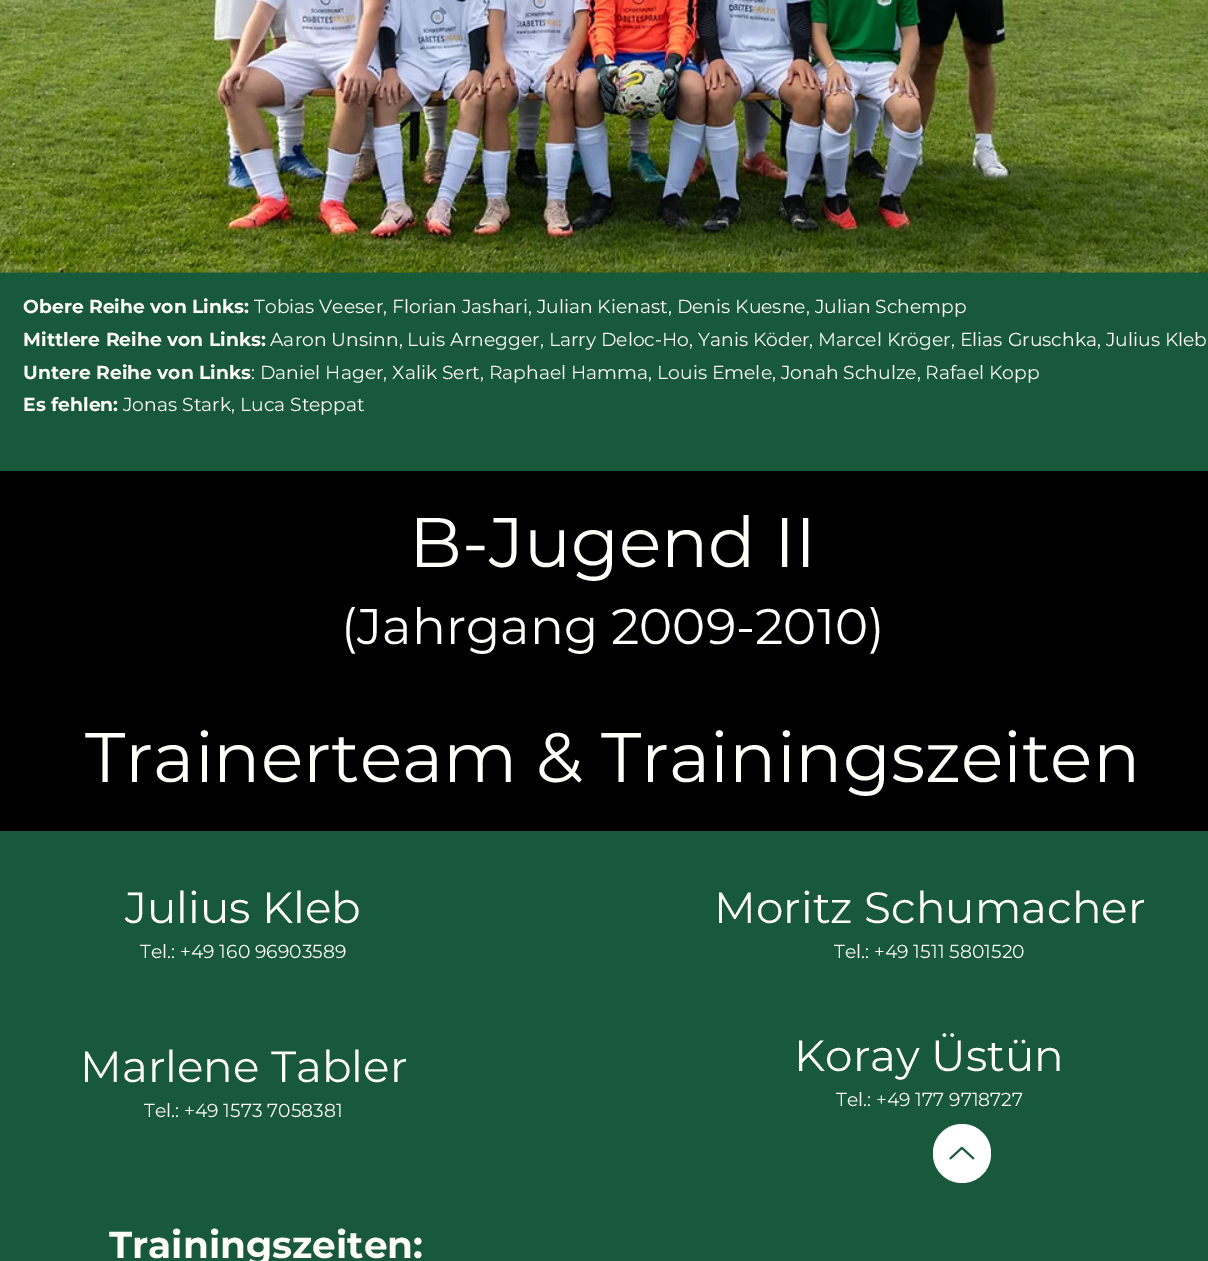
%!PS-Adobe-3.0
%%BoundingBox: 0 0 1208 1261
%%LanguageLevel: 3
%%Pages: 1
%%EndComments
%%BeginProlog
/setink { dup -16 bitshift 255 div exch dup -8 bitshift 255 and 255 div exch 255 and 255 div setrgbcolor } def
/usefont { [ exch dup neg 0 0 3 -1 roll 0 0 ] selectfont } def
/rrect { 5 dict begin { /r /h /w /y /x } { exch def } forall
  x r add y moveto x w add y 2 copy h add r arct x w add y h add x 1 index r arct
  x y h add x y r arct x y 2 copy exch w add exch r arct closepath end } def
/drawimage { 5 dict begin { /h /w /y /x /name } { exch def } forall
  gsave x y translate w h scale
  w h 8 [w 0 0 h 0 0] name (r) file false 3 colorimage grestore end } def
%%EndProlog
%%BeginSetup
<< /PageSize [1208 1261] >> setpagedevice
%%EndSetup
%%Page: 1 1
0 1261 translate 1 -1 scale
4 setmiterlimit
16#17593A setink
0 0 1208 1261 rectfill
(img1.raw) 0 0 1208 273 drawimage
/Montserrat-Bold 18.75 usefont
16#FFFEF8 setink
23 313 moveto (Obere Reihe von Links:) show
/Montserrat-Regular 18.75 usefont
254 313 moveto (Tobias Veeser, Florian Jashari, Julian Kienast, Denis Kuesne, Julian Schempp) show
/Montserrat-Bold 18.75 usefont
23 346 moveto (Mittlere Reihe von Links:) show
/Montserrat-Regular 18.75 usefont
270 346 moveto (Aaron Unsinn, Luis Arnegger, Larry Deloc-Ho, Yanis Köder, Marcel Kröger, Elias Gruschka, Julius Kleb) show
/Montserrat-Bold 18.75 usefont
23 379 moveto (Untere Reihe von Links) show
/Montserrat-Regular 18.75 usefont
251 379 moveto (: Daniel Hager, Xalik Sert, Raphael Hamma, Louis Emele, Jonah Schulze, Rafael Kopp) show
/Montserrat-Bold 18.75 usefont
23 411 moveto (Es fehlen:) show
/Montserrat-Regular 18.75 usefont
123 411 moveto (Jonas Stark, Luca Steppat) show
16#000000 setink
0 471 1208 360 rectfill
/Montserrat-Regular 70 usefont
16#FFFEF8 setink
409 567 moveto (B-Jugend II) show
/Montserrat-Regular 50 usefont
341 644 moveto (\(Jahrgang 2009-2010\)) show
/Montserrat-Regular 70 usefont
85 782 moveto (Trainerteam & Trainingszeiten) show
/Montserrat-Regular 43.75 usefont
125 923 moveto (Julius Kleb) show
/Montserrat-Regular 18.75 usefont
140 958 moveto (Tel.: +49 160 96903589) show
/Montserrat-Regular 43.75 usefont
714 923 moveto (Moritz Schumacher) show
/Montserrat-Regular 18.75 usefont
834 958 moveto (Tel.: +49 1511 5801520) show
/Montserrat-Regular 43.75 usefont
80 1082 moveto (Marlene Tabler) show
/Montserrat-Regular 18.75 usefont
144 1117 moveto (Tel.: +49 1573 7058381) show
/Montserrat-Regular 43.75 usefont
794 1071 moveto (Koray Üstün) show
/Montserrat-Regular 18.75 usefont
836 1106 moveto (Tel.: +49 177 9718727) show
/Montserrat-Bold 37.5 usefont
109 1258 moveto (Trainingszeiten:) show
16#FFFFFF setink
933 1124 58 59 29 rrect fill
(img2.raw) 949 1146 26 14 drawimage
showpage
%%EOF
